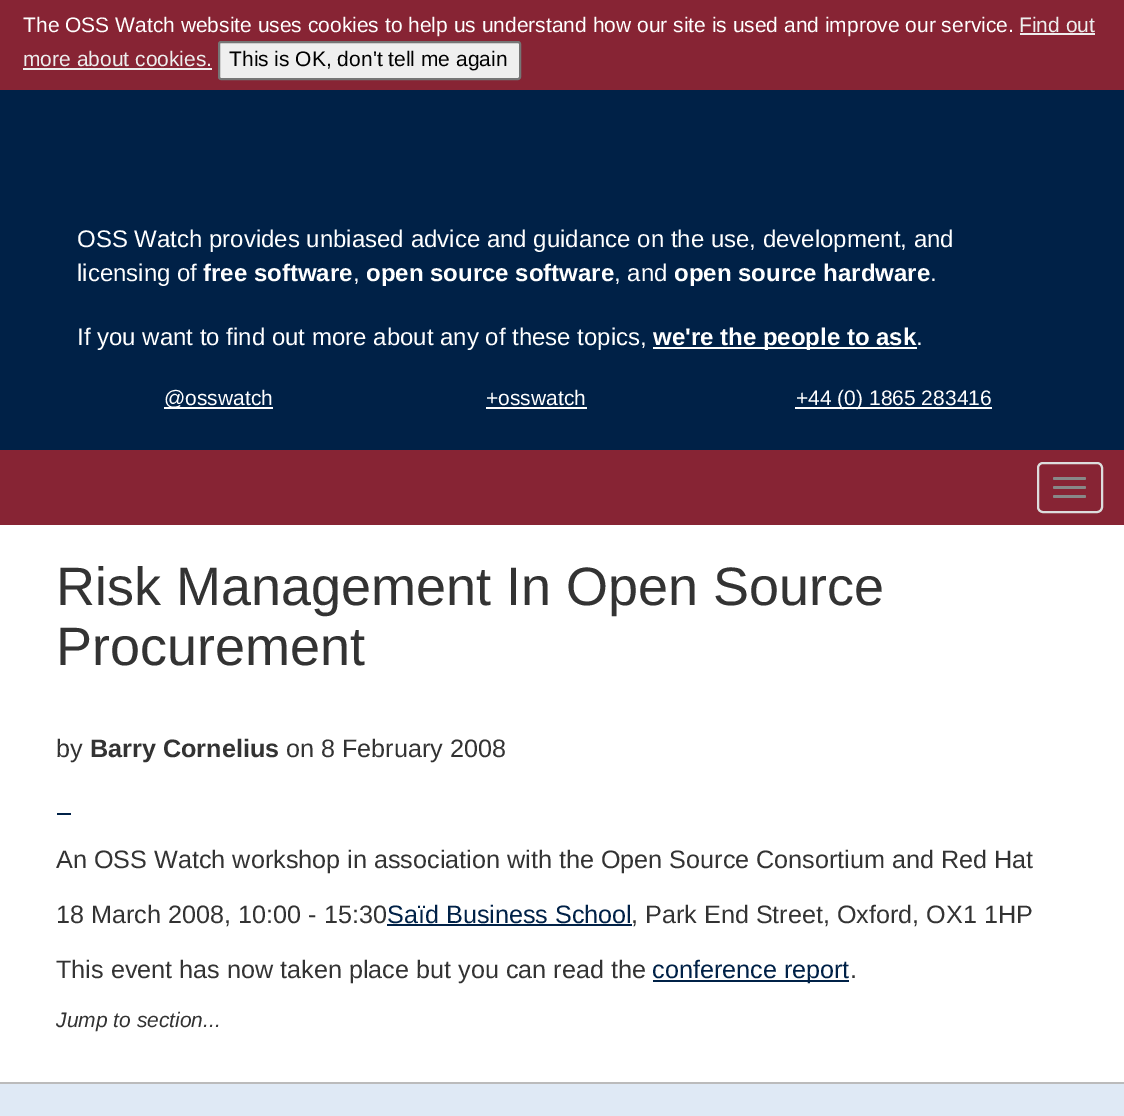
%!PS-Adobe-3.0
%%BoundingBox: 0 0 1124 1116
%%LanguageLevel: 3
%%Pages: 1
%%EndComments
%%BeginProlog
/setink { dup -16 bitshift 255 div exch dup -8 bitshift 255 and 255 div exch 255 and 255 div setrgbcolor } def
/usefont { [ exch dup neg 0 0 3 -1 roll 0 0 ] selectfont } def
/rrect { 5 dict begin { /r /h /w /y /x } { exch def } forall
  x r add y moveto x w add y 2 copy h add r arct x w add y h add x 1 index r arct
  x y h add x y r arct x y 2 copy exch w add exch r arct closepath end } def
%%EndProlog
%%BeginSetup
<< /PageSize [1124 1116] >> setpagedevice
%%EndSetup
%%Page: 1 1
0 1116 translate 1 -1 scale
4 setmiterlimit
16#FFFFFF setink
0 0 1124 1116 rectfill
16#872434 setink
0 0 1124 90 rectfill
/LiberationSans-Regular 21 usefont
16#FFFFFF setink
23 32 moveto (The OSS Watch website uses cookies to help us understand how our site is used and improve our service.) show
16#EEEEEE setink
1019 32 moveto (Find out) show
1020 33 75 2 rectfill
23 66 moveto (more about cookies.) show
23 68 189 2 rectfill
16#EFEFEF setink
219 42 301 37 2 rrect gsave fill grestore
16#767676 setink
2 setlinewidth
stroke
16#000000 setink
229 66 moveto (This is OK, don't tell me again) show
16#002147 setink
0 90 1124 360 rectfill
/LiberationSans-Regular 24 usefont
16#FFFFFF setink
77 247 moveto (OSS Watch provides unbiased advice and guidance on the use, development, and) show
77 281 moveto (licensing of) show
/LiberationSans-Bold 24 usefont
203 281 moveto (free software) show
/LiberationSans-Regular 24 usefont
353 281 moveto (,) show
/LiberationSans-Bold 24 usefont
366 281 moveto (open source software) show
/LiberationSans-Regular 24 usefont
614 281 moveto (, and) show
/LiberationSans-Bold 24 usefont
674 281 moveto (open source hardware) show
/LiberationSans-Regular 24 usefont
930 281 moveto (.) show
77 345 moveto (If you want to find out more about any of these topics,) show
653 347 264 2 rectfill
/LiberationSans-Bold 24 usefont
653 345 moveto (we're the people to ask) show
/LiberationSans-Regular 24 usefont
916 345 moveto (.) show
164 407 109 2 rectfill
/LiberationSans-Regular 21 usefont
164 405 moveto (@osswatch) show
486 405 moveto (+osswatch) show
486 407 101 2 rectfill
795 407 197 2 rectfill
796 405 moveto (+44 \(0\) 1865 283416) show
16#872434 setink
0 450 1124 75 rectfill
16#DDDDDD setink
1038 463 64 49 5 rrect stroke
16#888888 setink
1053 477 33 3 1.5 rrect fill
1053 486 33 3 1.5 rrect fill
1053 495 33 3 1.5 rrect fill
/LiberationSans-Regular 54 usefont
16#333333 setink
56 605 moveto (Risk Management In Open Source) show
56 665 moveto (Procurement) show
/LiberationSans-Regular 25.2 usefont
56 757 moveto (by) show
/LiberationSans-Bold 25.2 usefont
90 757 moveto (Barry Cornelius) show
/LiberationSans-Regular 25.2 usefont
286 757 moveto (on 8 February 2008) show
16#002147 setink
57 813 14 2 rectfill
16#333333 setink
56 868 moveto (An OSS Watch workshop in association with the Open Source Consortium and Red Hat) show
56 923 moveto (18 March 2008, 10:00 - 15:30) show
16#002147 setink
387 923 moveto (Saïd Business School) show
387 924 245 2 rectfill
16#333333 setink
631 923 moveto (, Park End Street, Oxford, OX1 1HP) show
56 978 moveto (This event has now taken place but you can read the) show
16#002147 setink
653 980 196 2 rectfill
652 978 moveto (conference report) show
16#333333 setink
850 978 moveto (.) show
/LiberationSans-Italic 21 usefont
56 1027 moveto (Jump to section...) show
16#DFE9F5 setink
0 1084 1124 32 rectfill
16#BBBBBB setink
0 1082 1124 2 rectfill
showpage
%%EOF
